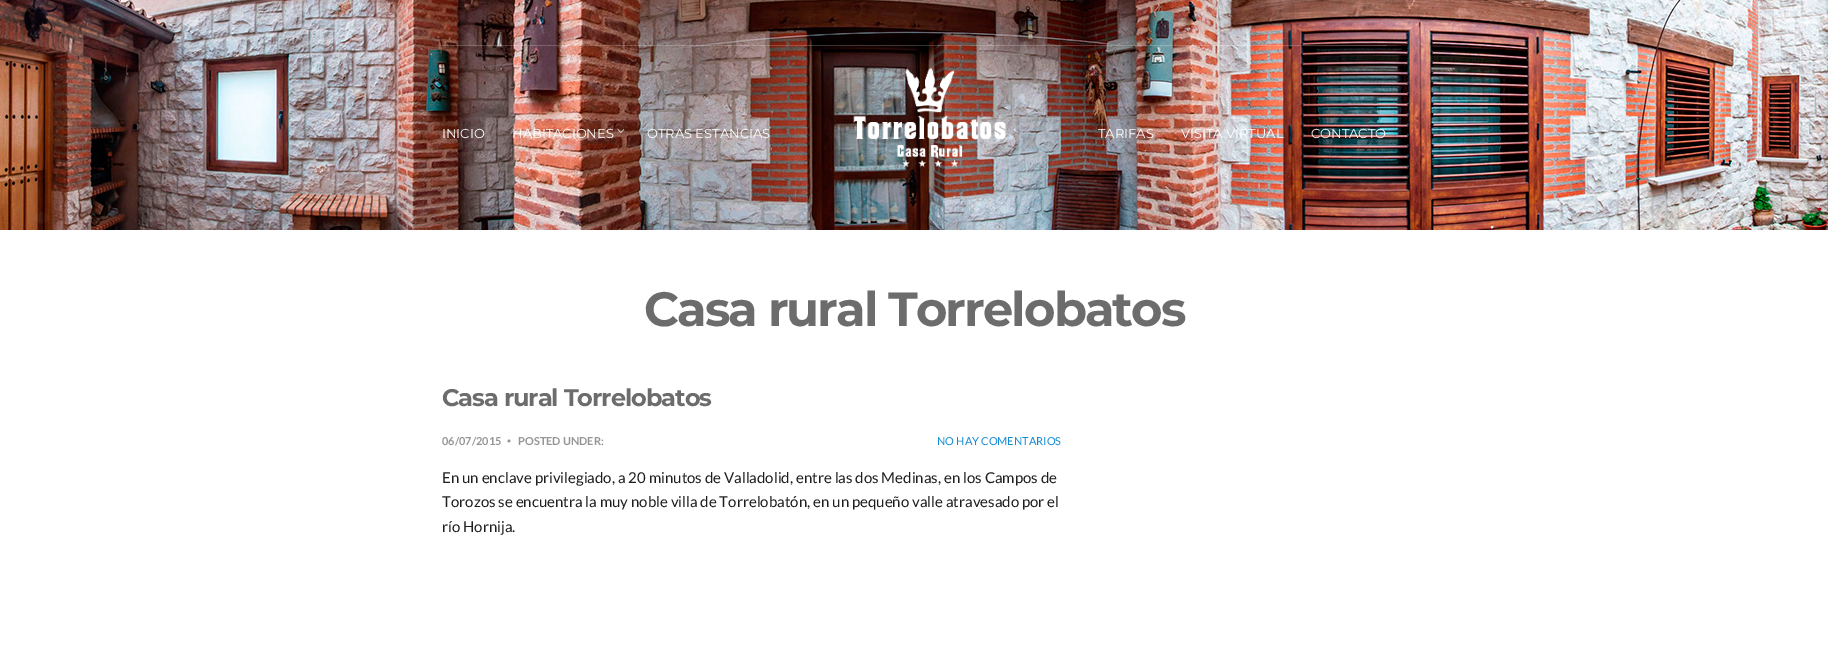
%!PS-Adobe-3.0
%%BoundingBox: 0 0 1828 650
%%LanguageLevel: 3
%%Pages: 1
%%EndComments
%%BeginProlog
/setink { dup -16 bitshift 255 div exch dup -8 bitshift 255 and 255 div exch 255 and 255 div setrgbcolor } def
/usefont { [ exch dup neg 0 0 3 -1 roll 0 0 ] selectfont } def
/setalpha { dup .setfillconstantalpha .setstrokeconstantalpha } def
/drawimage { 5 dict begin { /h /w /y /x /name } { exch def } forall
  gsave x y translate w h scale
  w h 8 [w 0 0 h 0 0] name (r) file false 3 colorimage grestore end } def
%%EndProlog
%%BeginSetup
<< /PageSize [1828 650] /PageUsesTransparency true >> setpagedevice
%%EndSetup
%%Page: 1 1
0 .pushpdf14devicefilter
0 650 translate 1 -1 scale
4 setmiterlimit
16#FFFFFF setink
0 0 1828 650 rectfill
(img1.raw) 0 0 1828 230 drawimage
0.2 setalpha
442 45 945 1 rectfill
/Montserrat-Regular 13 usefont
1 setalpha
442 138 moveto (INICIO) show
512 138 moveto (HABITACIONES) show
(img2.raw) 617 129 8 4 drawimage
647 138 moveto (OTRAS ESTANCIAS) show
(img3.raw) 853 67 154 101 drawimage
[
    [(TARIFAS) 1098 138]
    [(VISITA VIRTUAL) 1181 138]
    [(CONTACTO) 1311 138]
] { aload pop moveto show } forall
/Montserrat-Bold 48 usefont
16#6C6C6C setink
644 326 moveto -1.9 0 (Casa rural Torrelobatos) ashow
/Montserrat-Bold 24 usefont
442 406 moveto -1 0 (Casa rural Torrelobatos) ashow
/Lato-Bold 11 usefont
16#969696 setink
442 445 moveto (06/07/2015) show
/Lato-Bold 7 usefont
507 443 moveto (•) show
/Lato-Bold 11 usefont
518 445 moveto (POSTED UNDER:) show
/Lato-Regular 11 usefont
16#1289D5 setink
937 445 moveto (NO HAY COMENTARIOS) show
/Lato-Regular 15 usefont
16#1E1E1E setink
[
    [(En un enclave privilegiado, a 20 minutos de Valladolid, entre las dos Medinas, en los Campos de) 442 483]
    [(Torozos se encuentra la muy noble villa de Torrelobatón, en un pequeño valle atravesado por el) 442 507]
    [(río Hornija.) 442 532]
] { aload pop moveto show } forall
.poppdf14devicefilter showpage
%%EOF
